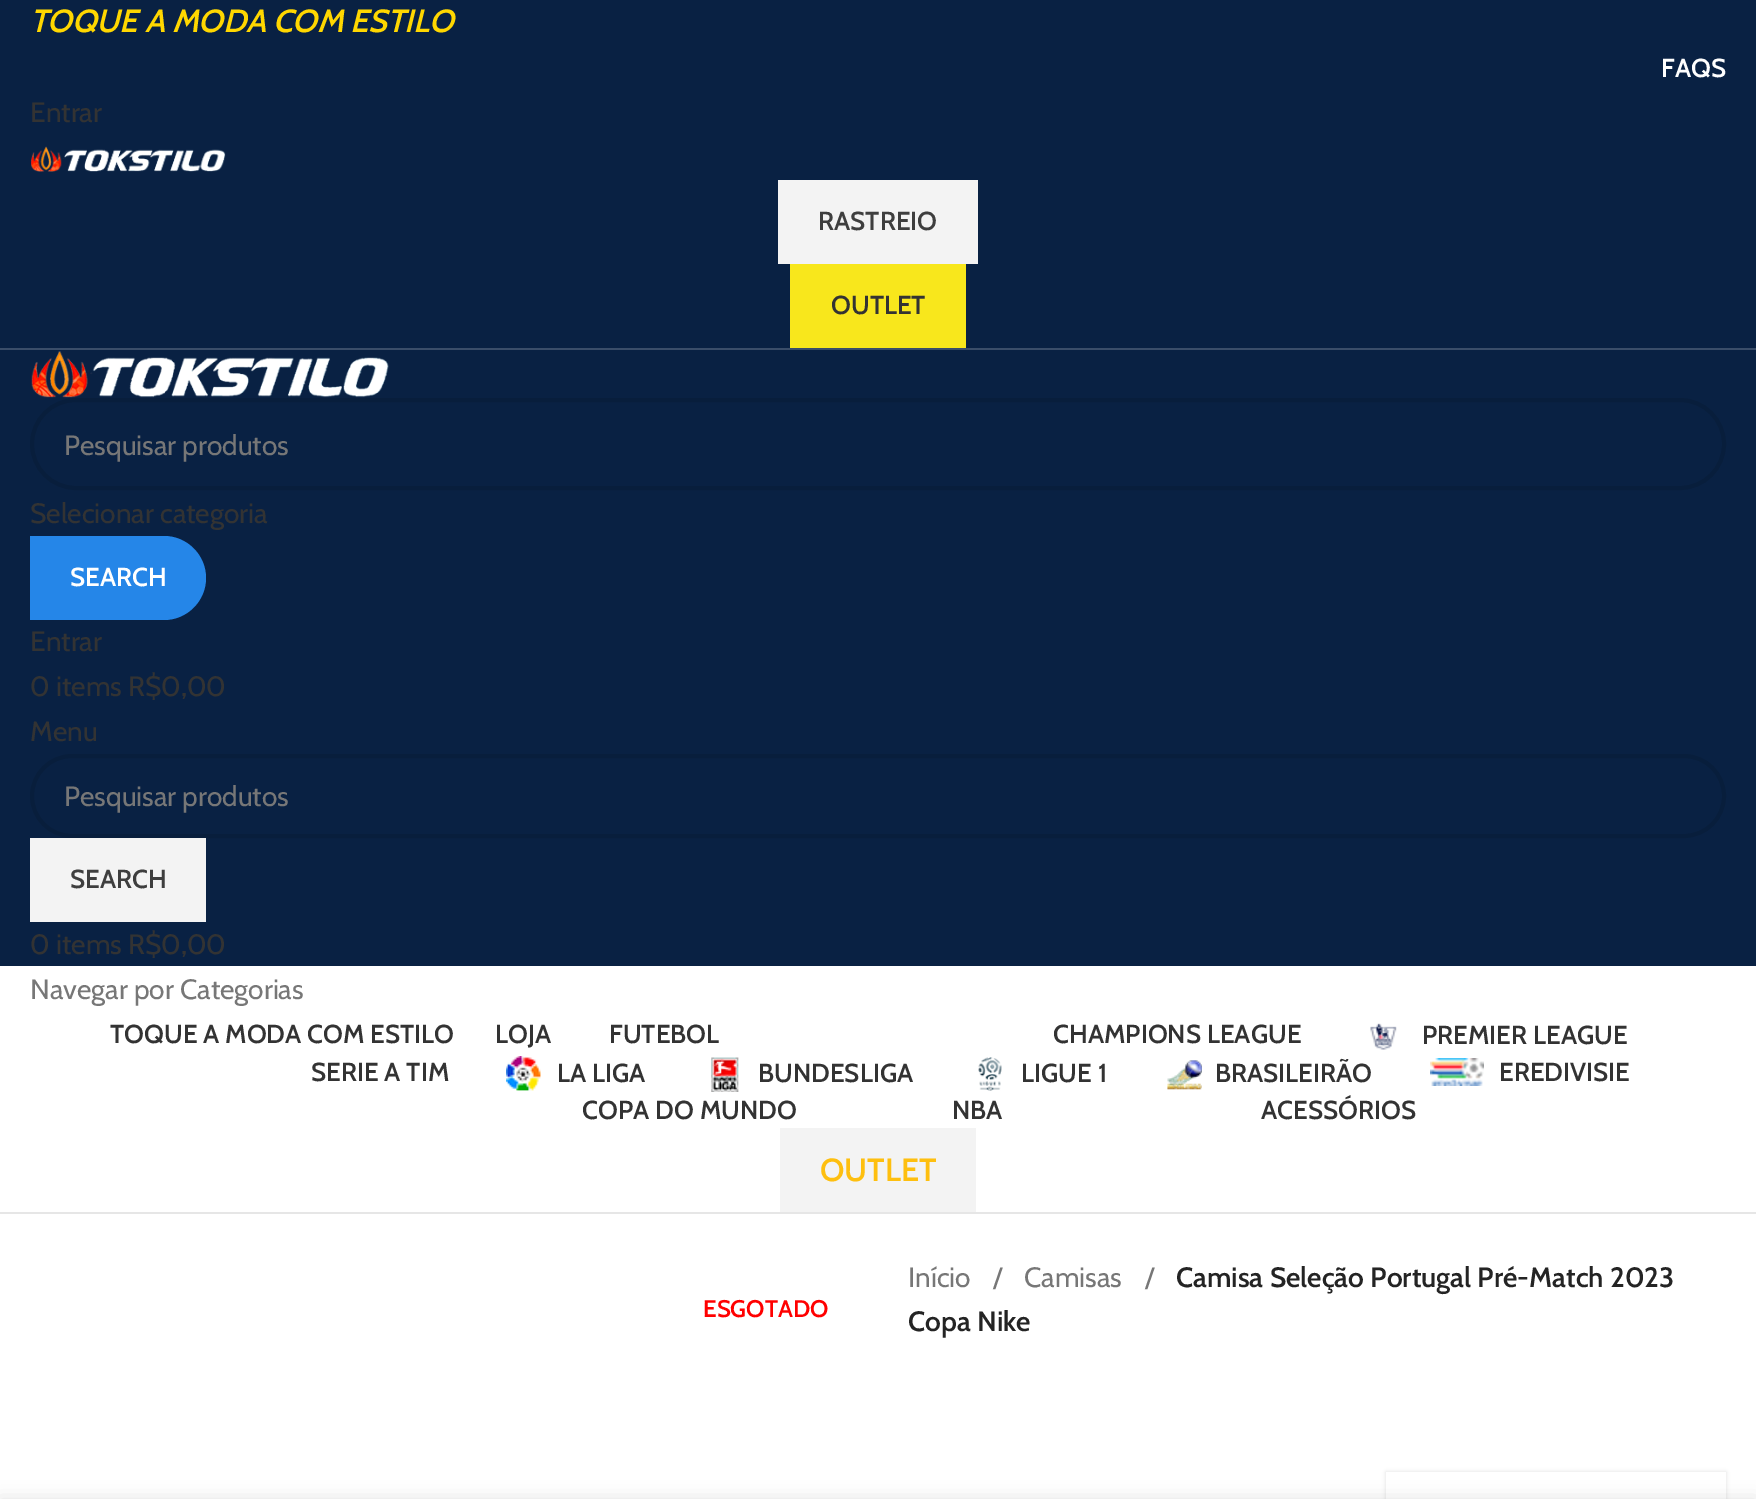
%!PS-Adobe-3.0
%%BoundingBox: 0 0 1756 1499
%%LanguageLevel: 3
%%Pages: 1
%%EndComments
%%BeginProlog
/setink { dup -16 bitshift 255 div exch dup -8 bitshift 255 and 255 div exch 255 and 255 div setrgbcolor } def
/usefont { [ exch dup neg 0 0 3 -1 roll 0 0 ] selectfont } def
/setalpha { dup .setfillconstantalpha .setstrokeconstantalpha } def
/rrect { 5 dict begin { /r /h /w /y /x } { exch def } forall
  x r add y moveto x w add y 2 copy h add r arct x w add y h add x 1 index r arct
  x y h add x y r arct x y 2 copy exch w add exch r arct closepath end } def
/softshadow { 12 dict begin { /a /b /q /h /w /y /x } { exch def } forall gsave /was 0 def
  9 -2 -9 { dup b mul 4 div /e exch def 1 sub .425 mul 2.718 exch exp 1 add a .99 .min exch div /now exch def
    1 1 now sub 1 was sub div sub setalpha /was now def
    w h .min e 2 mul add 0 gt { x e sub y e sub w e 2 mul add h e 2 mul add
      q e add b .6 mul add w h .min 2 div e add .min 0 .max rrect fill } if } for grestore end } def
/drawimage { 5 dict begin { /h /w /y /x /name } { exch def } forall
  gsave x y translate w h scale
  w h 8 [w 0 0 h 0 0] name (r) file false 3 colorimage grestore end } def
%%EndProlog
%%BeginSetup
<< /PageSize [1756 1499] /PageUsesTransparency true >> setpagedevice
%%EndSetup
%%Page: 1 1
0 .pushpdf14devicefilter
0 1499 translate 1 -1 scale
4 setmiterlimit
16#FFFFFF setink
0 0 1756 1499 rectfill
16#092143 setink
0 0 1756 348 rectfill
16#3A4D69 setink
0 348 1756 2 rectfill
/Cabin-SemiBoldItalic 32 usefont
16#FFD700 setink
30 32 moveto (TOQUE A MODA COM ESTILO) show
/Cabin-SemiBold 26 usefont
16#FFFFFF setink
1661 77 moveto (FAQS) show
/Cabin-Regular 28 usefont
16#333333 setink
30 122 moveto (Entrar) show
(img1.raw) 31 146 195 26 drawimage
16#F3F3F3 setink
778 180 200 84 rectfill
/Cabin-SemiBold 26 usefont
16#3E3E3E setink
818 230 moveto (RASTREIO) show
16#F8E71C setink
790 264 176 84 rectfill
16#333333 setink
831 314 moveto (OUTLET) show
16#092143 setink
0 350 1756 616 rectfill
(img2.raw) 31 351 358 47 drawimage
16#081E3C setink
4 setlinewidth
32 400 1692 88 44 rrect stroke
/Cabin-Regular 28 usefont
16#777777 setink
64 455 moveto (Pesquisar produtos) show
16#333333 setink
30 523 moveto (Selecionar categoria) show
16#2586E8 setink
30 536 moveto 164 536 lineto 187 536 206 555 206 578 curveto 206 601 187 620 164 620 curveto 30 620 lineto closepath fill
/Cabin-SemiBold 26 usefont
16#FFFFFF setink
70 586 moveto (SEARCH) show
/Cabin-Regular 28 usefont
16#333333 setink
[
    [(Entrar) 30 651]
    [(0 items R$0,00) 30 696]
    [(Menu) 30 741]
] { aload pop moveto show } forall
16#081E3C setink
32 756 1692 80 40 rrect stroke
16#777777 setink
64 806 moveto (Pesquisar produtos) show
16#F3F3F3 setink
30 838 176 84 rectfill
/Cabin-SemiBold 26 usefont
16#3E3E3E setink
70 888 moveto (SEARCH) show
/Cabin-Regular 28 usefont
16#333333 setink
30 954 moveto (0 items R$0,00) show
16#E6E6E6 setink
0 1212 1756 2 rectfill
16#777777 setink
30 999 moveto (Navegar por Categorias) show
/Cabin-SemiBold 26 usefont
16#333333 setink
[
    [(TOQUE A MODA COM ESTILO) 110 1043]
    [(LOJA) 495 1043]
    [(FUTEBOL) 609 1043]
    [(CHAMPIONS LEAGUE) 1053 1043]
] { aload pop moveto show } forall
(img3.raw) 1370 1023 27 27 drawimage
1422 1044 moveto (PREMIER LEAGUE) show
311 1081 moveto (SERIE A TIM) show
(img4.raw) 506 1056 35 35 drawimage
557 1082 moveto (LA LIGA) show
(img5.raw) 711 1057 28 35 drawimage
758 1082 moveto (BUNDESLIGA) show
(img6.raw) 978 1057 24 34 drawimage
1021 1082 moveto (LIGUE 1) show
(img7.raw) 1167 1060 35 30 drawimage
1215 1082 moveto (BRASILEIRÃO) show
(img8.raw) 1430 1058 54 28 drawimage
[
    [(EREDIVISIE) 1499 1081]
    [(COPA DO MUNDO) 582 1119]
    [(NBA) 952 1119]
    [(ACESSÓRIOS) 1261 1119]
] { aload pop moveto show } forall
16#F3F3F3 setink
780 1128 196 84 rectfill
/Cabin-SemiBold 32 usefont
16#FEBF0F setink
820 1181 moveto (OUTLET) show
/Cabin-SemiBold 24 usefont
16#FF0000 setink
703 1317 moveto (ESGOTADO) show
/Cabin-Regular 28 usefont
16#777777 setink
[
    [(Início) 908 1287]
    [(/) 993 1287]
    [(Camisas) 1024 1287]
    [(/) 1145 1287]
] { aload pop moveto show } forall
/Cabin-SemiBold 28 usefont
16#242424 setink
1176 1287 moveto (Camisa Seleção Portugal Pré-Match 2023) show
908 1331 moveto (Copa Nike) show
gsave
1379 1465 moveto 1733 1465 lineto 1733 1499 lineto 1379 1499 lineto closepath 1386 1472 moveto 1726 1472 lineto 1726 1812 lineto 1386 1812 lineto closepath eoclip newpath
16#000000 setink
1386 1472 340 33 0 2 0.12 softshadow
grestore
16#000000 setink
0 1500 1756 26 0 9 0.12 softshadow
.poppdf14devicefilter showpage
%%EOF
